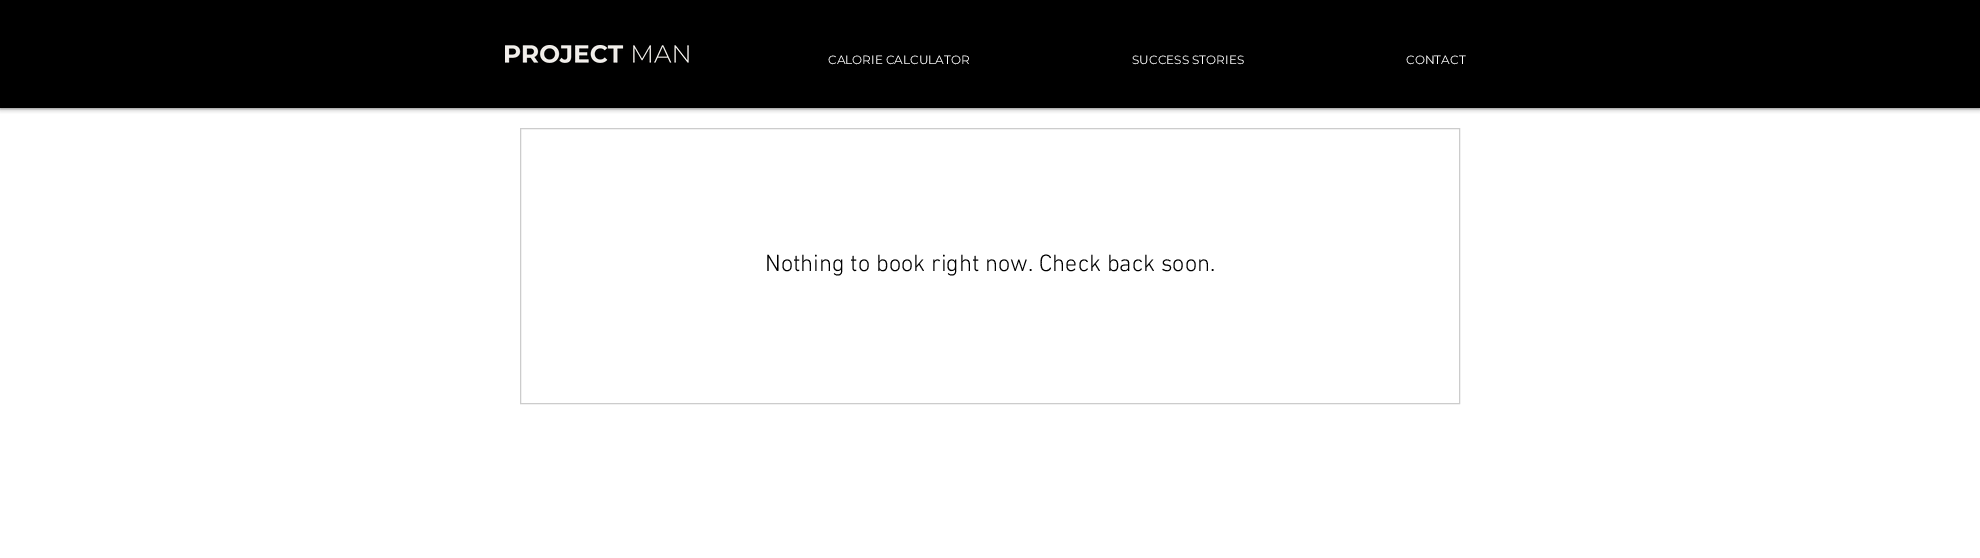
%!PS-Adobe-3.0
%%BoundingBox: 0 0 1980 558
%%LanguageLevel: 3
%%Pages: 1
%%EndComments
%%BeginProlog
/setink { dup -16 bitshift 255 div exch dup -8 bitshift 255 and 255 div exch 255 and 255 div setrgbcolor } def
/usefont { [ exch dup neg 0 0 3 -1 roll 0 0 ] selectfont } def
/setalpha { dup .setfillconstantalpha .setstrokeconstantalpha } def
/rrect { 5 dict begin { /r /h /w /y /x } { exch def } forall
  x r add y moveto x w add y 2 copy h add r arct x w add y h add x 1 index r arct
  x y h add x y r arct x y 2 copy exch w add exch r arct closepath end } def
/softshadow { 12 dict begin { /a /b /q /h /w /y /x } { exch def } forall gsave /was 0 def
  9 -2 -9 { dup b mul 4 div /e exch def 1 sub .425 mul 2.718 exch exp 1 add a .99 .min exch div /now exch def
    1 1 now sub 1 was sub div sub setalpha /was now def
    w h .min e 2 mul add 0 gt { x e sub y e sub w e 2 mul add h e 2 mul add
      q e add b .6 mul add w h .min 2 div e add .min 0 .max rrect fill } if } for grestore end } def
/drawimage { 5 dict begin { /h /w /y /x /name } { exch def } forall
  gsave x y translate w h scale
  w h 8 [w 0 0 h 0 0] name (r) file false 3 colorimage grestore end } def
%%EndProlog
%%BeginSetup
<< /PageSize [1980 558] /PageUsesTransparency true >> setpagedevice
%%EndSetup
%%Page: 1 1
0 .pushpdf14devicefilter
0 558 translate 1 -1 scale
4 setmiterlimit
16#FFFFFF setink
0 0 1980 558 rectfill
16#000000 setink
0 0 1980 108 0 2.5 0.7 softshadow
0 0 1980 108 rectfill
(img1.raw) 505 45 184 18 drawimage
/Montserrat-Regular 12 usefont
16#FFFFFF setink
[
    [(CALORIE CALCULATOR) 828 64]
    [(SUCCESS STORIES) 1132 64]
    [(CONTACT) 1406 64]
] { aload pop moveto show } forall
16#CCCCCC setink
520.5 128.5 939 275 rectstroke
/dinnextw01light-Light 24 usefont
16#000000 setink
765 271 moveto (Nothing to book right now. Check back soon.) show
.poppdf14devicefilter showpage
%%EOF
